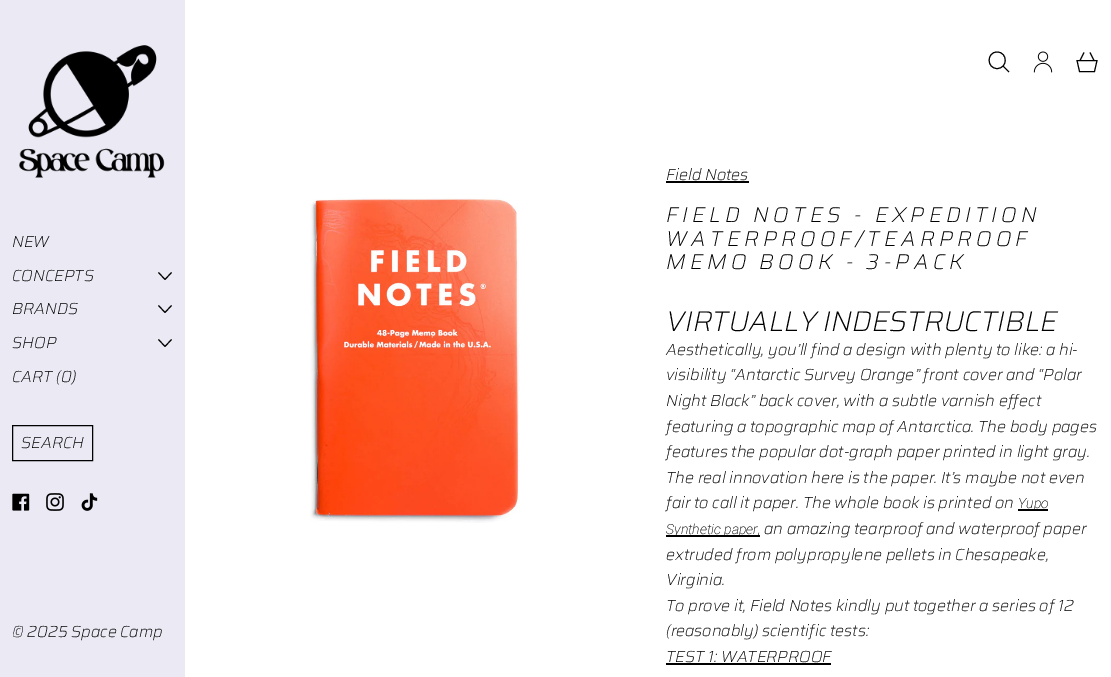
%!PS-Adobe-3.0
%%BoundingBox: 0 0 1111 677
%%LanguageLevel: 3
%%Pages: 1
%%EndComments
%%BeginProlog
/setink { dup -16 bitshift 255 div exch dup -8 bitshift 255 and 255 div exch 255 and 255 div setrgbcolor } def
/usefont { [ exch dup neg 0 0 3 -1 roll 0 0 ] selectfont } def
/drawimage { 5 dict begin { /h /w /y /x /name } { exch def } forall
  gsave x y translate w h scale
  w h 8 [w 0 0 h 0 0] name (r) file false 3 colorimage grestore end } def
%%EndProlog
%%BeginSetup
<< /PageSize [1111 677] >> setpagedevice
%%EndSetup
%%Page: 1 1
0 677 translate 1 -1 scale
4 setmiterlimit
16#FFFFFF setink
0 0 1111 677 rectfill
16#EBE9F4 setink
0 0 185 677 rectfill
(img1.raw) 19 45 146 133 drawimage
/Saira-ExtraLightItalic 16 usefont
16#000000 setink
12 247 moveto (NEW) show
12 281 moveto (CONCEPTS) show
1 setlinejoin
158.5 272.5 moveto 165 279.5 lineto 171.5 272.5 lineto 158.5 305.5 moveto 165 312.5 lineto 171.5 305.5 lineto stroke
12 314 moveto (BRANDS) show
12 348 moveto (SHOP) show
158.5 339.5 moveto 165 346.5 lineto 171.5 339.5 lineto stroke
12 382 moveto (CART \(0\)) show
0 setlinejoin
12.5 425.5 80 35 rectstroke
21 448 moveto (SEARCH) show
(img2.raw) 12 493 18 18 drawimage
(img3.raw) 46 493 18 18 drawimage
(img4.raw) 81 493 17 18 drawimage
12 637 moveto (© 2025 Space Camp) show
997 68.5 moveto 1008 68.5 1008 52 997 52 curveto 986.5 52 986.5 68.5 997 68.5 curveto closepath 1003 66 moveto 1009 72 lineto stroke
(img5.raw) 1033 51 20 22 drawimage
1079.5 71.5 moveto 1077 60.5 lineto 1097 60.5 lineto 1094.5 71.5 lineto closepath 1080 60.5 moveto 1084 52.5 lineto 1094 60.5 moveto 1090 52.5 lineto stroke
(img6.raw) 310 197 210 326 drawimage
666 180 moveto (Field Notes) show
666 181 83 2 rectfill
/Saira-ExtraLightItalic 21.3 usefont
666 222 moveto 4.25 0 (FIELD NOTES - EXPEDITION) ashow
666 246 moveto 4.25 0 (WATERPROOF/TEARPROOF) ashow
666 269 moveto 4.25 0 (MEMO BOOK - 3-PACK) ashow
/Saira-ExtraLightItalic 28.5 usefont
666 331 moveto (VIRTUALLY INDESTRUCTIBLE) show
/Saira-ExtraLightItalic 16 usefont
[
    [(Aesthetically, you’ll find a design with plenty to like: a hi-) 666 355]
    [(visibility “Antarctic Survey Orange” front cover and “Polar) 666 380]
    [(Night Black” back cover, with a subtle varnish effect) 666 406]
    [(featuring a topographic map of Antarctica. The body pages) 666 432]
    [(features the popular dot-graph paper printed in light gray.) 666 457]
    [(The real innovation here is the paper. It’s maybe not even) 666 483]
    [(fair to call it paper. The whole book is printed on) 666 508]
] { aload pop moveto show } forall
1018 509 30 2 rectfill
/Roboto-ExtraLightItalic 14 usefont
1018 508 moveto (Yupo) show
666 535 94 2 rectfill
666 534 moveto (Synthetic paper,) show
/Saira-ExtraLightItalic 16 usefont
[
    [(an amazing tearproof and waterproof paper) 764 534]
    [(extruded from polypropylene pellets in Chesapeake,) 666 560]
    [(Virginia.) 666 585]
    [(To prove it, Field Notes kindly put together a series of 12) 666 611]
    [(\(reasonably\) scientific tests:) 666 636]
    [(TEST 1: WATERPROOF) 666 662]
] { aload pop moveto show } forall
666 663 165 2 rectfill
showpage
%%EOF
